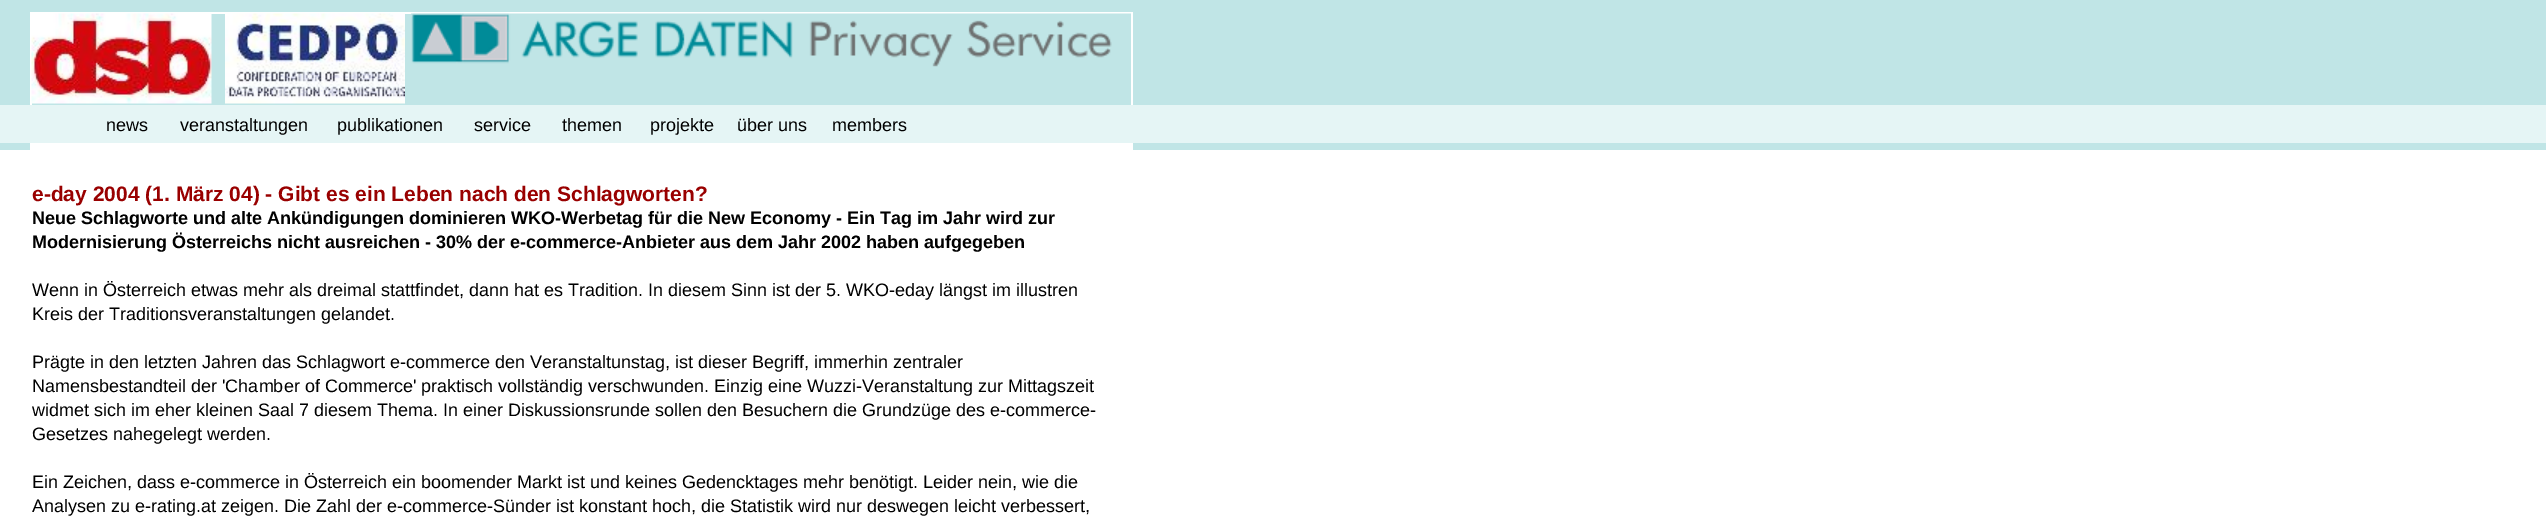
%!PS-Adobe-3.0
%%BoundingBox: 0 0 2546 519
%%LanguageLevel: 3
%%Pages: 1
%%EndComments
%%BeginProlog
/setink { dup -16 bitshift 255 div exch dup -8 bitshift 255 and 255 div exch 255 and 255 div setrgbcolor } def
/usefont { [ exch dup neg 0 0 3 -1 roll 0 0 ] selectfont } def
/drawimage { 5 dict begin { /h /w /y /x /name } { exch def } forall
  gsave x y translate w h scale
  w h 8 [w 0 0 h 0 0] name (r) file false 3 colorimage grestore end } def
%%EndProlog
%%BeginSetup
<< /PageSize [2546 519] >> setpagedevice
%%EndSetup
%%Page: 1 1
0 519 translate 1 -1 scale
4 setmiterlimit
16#FFFFFF setink
0 0 2546 519 rectfill
[
    [0 0 2546 150 16#C0E5E6]
    [30 12 1103 138 16#FFFFFF]
    [32 14 1099 91 16#C0E5E6]
] { aload pop setink rectfill } forall
(img1.raw) 31 13 181 91 drawimage
(img2.raw) 225 13 180 91 drawimage
(img3.raw) 411 13 720 54 drawimage
16#E5F5F5 setink
0 105 2546 38 rectfill
/LiberationSans-Regular 18 usefont
16#000000 setink
[
    [(news) 106 131]
    [(veranstaltungen) 180 131]
    [(publikationen) 337 131]
    [(service) 474 131]
    [(themen) 562 131]
    [(projekte) 650 131]
    [(über uns) 737 131]
    [(members) 832 131]
] { aload pop moveto show } forall
/LiberationSans-Bold 21 usefont
16#990000 setink
32 201 moveto (e-day 2004 \(1. März 04\) - Gibt es ein Leben nach den Schlagworten?) show
/LiberationSans-Bold 18 usefont
16#000000 setink
32 224 moveto (Neue Schlagworte und alte Ankündigungen dominieren WKO-Werbetag für die New Economy - Ein Tag im Jahr wird zur) show
32 248 moveto (Modernisierung Österreichs nicht ausreichen - 30% der e-commerce-Anbieter aus dem Jahr 2002 haben aufgegeben) show
/LiberationSans-Regular 18 usefont
[
    [(Wenn in Österreich etwas mehr als dreimal stattfindet, dann hat es Tradition. In diesem Sinn ist der 5. WKO-eday längst im illustren) 32 296]
    [(Kreis der Traditionsveranstaltungen gelandet.) 32 320]
    [(Prägte in den letzten Jahren das Schlagwort e-commerce den Veranstaltunstag, ist dieser Begriff, immerhin zentraler) 32 368]
    [(Namensbestandteil der 'Chamber of Commerce' praktisch vollständig verschwunden. Einzig eine Wuzzi-Veranstaltung zur Mittagszeit) 32 392]
    [(widmet sich im eher kleinen Saal 7 diesem Thema. In einer Diskussionsrunde sollen den Besuchern die Grundzüge des e-commerce-) 32 416]
    [(Gesetzes nahegelegt werden.) 32 440]
    [(Ein Zeichen, dass e-commerce in Österreich ein boomender Markt ist und keines Gedencktages mehr benötigt. Leider nein, wie die) 32 488]
    [(Analysen zu e-rating.at zeigen. Die Zahl der e-commerce-Sünder ist konstant hoch, die Statistik wird nur deswegen leicht verbessert,) 32 512]
] { aload pop moveto show } forall
showpage
%%EOF
